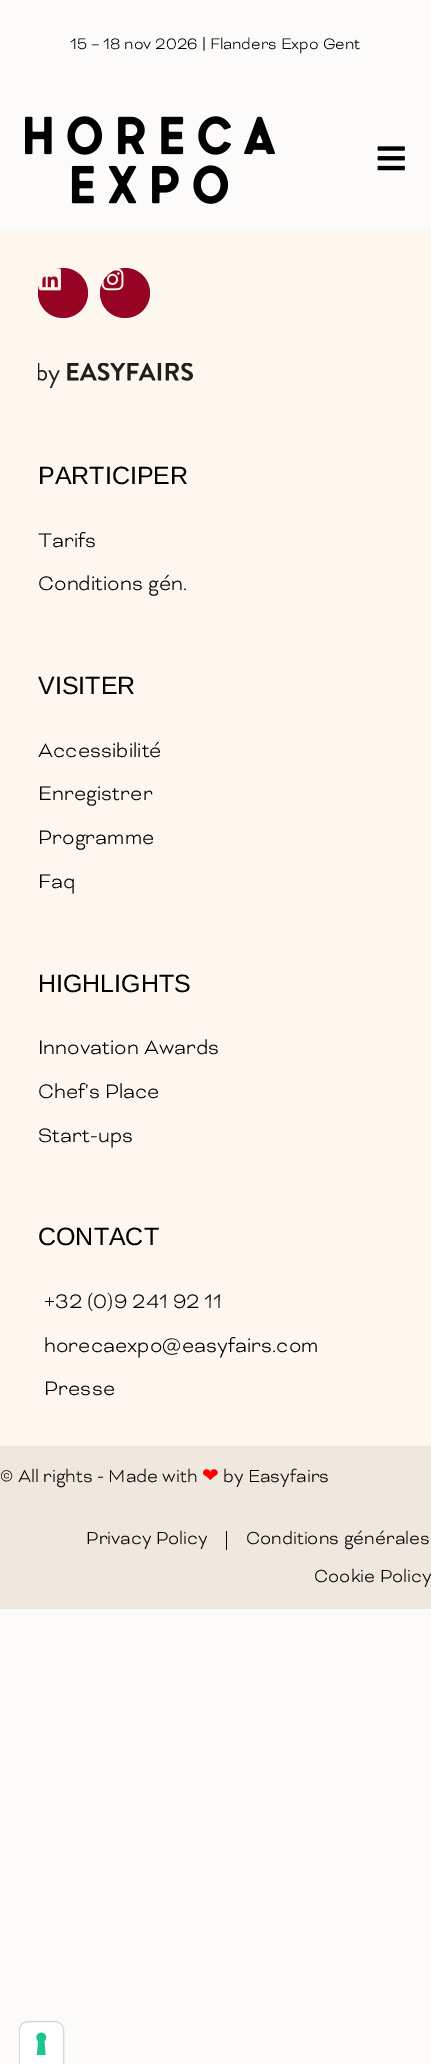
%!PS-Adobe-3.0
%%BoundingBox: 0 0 431 2064
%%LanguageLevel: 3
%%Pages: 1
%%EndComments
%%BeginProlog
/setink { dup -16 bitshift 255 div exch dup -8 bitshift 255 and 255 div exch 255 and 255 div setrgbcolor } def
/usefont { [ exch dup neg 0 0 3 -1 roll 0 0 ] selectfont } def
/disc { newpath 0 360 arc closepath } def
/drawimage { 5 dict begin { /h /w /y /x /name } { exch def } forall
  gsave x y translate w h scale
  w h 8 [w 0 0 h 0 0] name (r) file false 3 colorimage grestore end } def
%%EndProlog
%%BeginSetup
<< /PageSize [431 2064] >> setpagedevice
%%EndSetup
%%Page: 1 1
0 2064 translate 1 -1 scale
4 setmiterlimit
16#FCFBFA setink
0 0 431 2064 rectfill
/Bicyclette-Light 17.5 usefont
16#010101 setink
70 49 moveto (15 – 18 nov 2026 | Flanders Expo Gent) show
(img1.raw) 25 116 250 88 drawimage
(img2.raw) 377 146 28 25 drawimage
16#FDF7EF setink
0 230 431 1216 rectfill
16#960323 setink
63 293 25 disc fill
(img3.raw) 39 268 22 23 drawimage
125 293 25 disc fill
(img4.raw) 101 268 23 23 drawimage
(img5.raw) 38 363 155 25 drawimage
/LiberationSans-Regular 25 usefont
16#010101 setink
38 484 moveto (PARTICIPER) show
/Bicyclette-Light 22.5 usefont
38 547 moveto (Tarifs) show
38 590 moveto (Conditions gén.) show
/LiberationSans-Regular 25 usefont
38 694 moveto (VISITER) show
/Bicyclette-Light 22.5 usefont
[
    [(Accessibilité) 38 757]
    [(Enregistrer) 38 800]
    [(Programme) 38 844]
    [(Faq) 38 888]
] { aload pop moveto show } forall
/LiberationSans-Regular 25 usefont
38 992 moveto (HIGHLIGHTS) show
/Bicyclette-Light 22.5 usefont
[
    [(Innovation Awards) 38 1054]
    [(Chef's Place) 38 1098]
    [(Start-ups) 38 1142]
] { aload pop moveto show } forall
/LiberationSans-Regular 25 usefont
38 1245 moveto (CONTACT) show
/Bicyclette-Light 22.5 usefont
[
    [(+32 \(0\)9 241 92 11) 44 1308]
    [(horecaexpo@easyfairs.com) 44 1352]
    [(Presse) 44 1395]
] { aload pop moveto show } forall
16#EFE8DF setink
0 1446 431 163 rectfill
/Bicyclette-Light 20 usefont
16#010101 setink
0 1482 moveto (© All rights - Made with) show
/DejaVuSans-Regular 20 usefont
16#FF0000 setink
202 1482 moveto (❤) show
/Bicyclette-Light 20 usefont
16#010101 setink
223 1482 moveto (by Easyfairs) show
86 1544 moveto (Privacy Policy) show
226 1531 1 19 rectfill
246 1544 moveto (Conditions générales) show
314 1582 moveto (Cookie Policy) show
16#D6D5D5 setink
28 2021.5 moveto 55 2021.5 lineto 59.5 2021.5 63.5 2025.5 63.5 2030 curveto 63.5 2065.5 lineto 19.5 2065.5 lineto 19.5 2030 lineto 19.5 2025.5 23.5 2021.5 28 2021.5 curveto closepath stroke
16#FFFFFF setink
28 2023 moveto 55 2023 lineto 59.5 2023 63 2026.5 63 2031 curveto 63 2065 lineto 20 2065 lineto 20 2031 lineto 20 2026.5 23.5 2023 28 2023 curveto closepath fill
(img6.raw) 36 2032 11 23 drawimage
showpage
%%EOF
